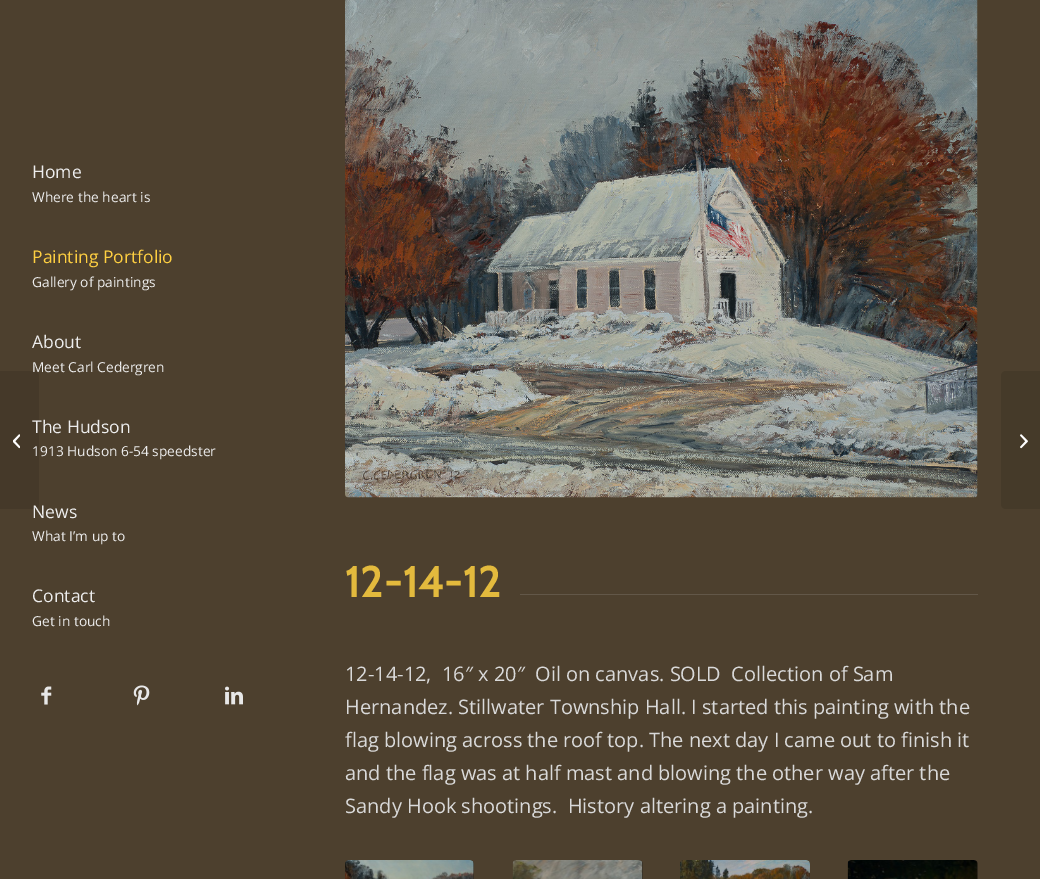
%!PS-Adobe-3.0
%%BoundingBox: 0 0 1040 879
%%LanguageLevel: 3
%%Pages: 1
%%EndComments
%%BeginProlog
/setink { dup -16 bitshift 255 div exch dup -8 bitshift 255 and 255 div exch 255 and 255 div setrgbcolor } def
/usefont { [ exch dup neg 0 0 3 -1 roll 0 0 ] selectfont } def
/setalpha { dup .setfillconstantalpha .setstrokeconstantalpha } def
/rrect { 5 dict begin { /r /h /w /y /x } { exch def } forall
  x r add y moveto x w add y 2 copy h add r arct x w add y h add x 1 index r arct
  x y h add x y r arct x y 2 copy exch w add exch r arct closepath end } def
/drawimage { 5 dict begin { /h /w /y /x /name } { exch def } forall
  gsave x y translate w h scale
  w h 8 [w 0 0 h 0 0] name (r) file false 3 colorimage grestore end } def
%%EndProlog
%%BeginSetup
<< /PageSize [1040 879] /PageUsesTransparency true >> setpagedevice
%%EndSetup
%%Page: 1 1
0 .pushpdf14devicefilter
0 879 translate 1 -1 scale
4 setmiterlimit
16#4D402E setink
0 0 1040 879 rectfill
0.1 setalpha
16#000000 setink
0 371 moveto 34 371 lineto 37 371 39 373 39 376 curveto 39 504 lineto 39 507 37 509 34 509 curveto 0 509 lineto closepath fill
1 setalpha
(img1.raw) 13 434 7 15 drawimage
/OpenSans-Regular 17.5 usefont
16#EDEDED setink
32 178 moveto (Home) show
/OpenSans-Regular 13.75 usefont
32 202 moveto (Where the heart is) show
/OpenSans-Regular 17.5 usefont
16#FECF41 setink
32 263 moveto (Painting Portfolio) show
/OpenSans-Regular 13.75 usefont
16#EDEDED setink
32 287 moveto (Gallery of paintings) show
/OpenSans-Regular 17.5 usefont
32 348 moveto (About) show
/OpenSans-Regular 13.75 usefont
32 372 moveto (Meet Carl Cedergren) show
/OpenSans-Regular 17.5 usefont
32 433 moveto (The Hudson) show
/OpenSans-Regular 13.75 usefont
32 456 moveto (1913 Hudson 6-54 speedster) show
/OpenSans-Regular 17.5 usefont
32 518 moveto (News) show
/OpenSans-Regular 13.75 usefont
32 541 moveto (What I’m up to) show
/OpenSans-Regular 17.5 usefont
32 602 moveto (Contact) show
/OpenSans-Regular 13.75 usefont
32 626 moveto (Get in touch) show
(img2.raw) 41 686 11 19 drawimage
(img3.raw) 133 685 17 21 drawimage
(img4.raw) 225 686 18 19 drawimage
16#453A29 setink
1006 371 moveto 1040 371 lineto 1040 509 lineto 1006 509 lineto 1003 509 1001 507 1001 504 curveto 1001 376 lineto 1001 373 1003 371 1006 371 curveto closepath fill
(img5.raw) 1020 434 8 15 drawimage
(img6.raw) 345 0 633 498 drawimage
/Cabin-Bold 42.5 usefont
16#E3BA3D setink
345 597 moveto 1.25 0 (12-14-12) ashow
16#625748 setink
520 594 458 1 rectfill
/OpenSans-Regular 20 usefont
16#D9D9D9 setink
[
    [(12-14-12,  16″ x 20″  Oil on canvas. SOLD  Collection of Sam) 345 681]
    [(Hernandez. Stillwater Township Hall. I started this painting with the) 345 714]
    [(flag blowing across the roof top. The next day I came out to finish it) 345 747]
    [(and the flag was at half mast and blowing the other way after the) 345 780]
    [(Sandy Hook shootings.  History altering a painting.) 345 813]
] { aload pop moveto show } forall
16#332B20 setink
345 860 129 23 4 rrect fill
(img7.raw) 345 860 129 19 drawimage
513 860 130 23 4 rrect fill
(img8.raw) 512 860 131 19 drawimage
(img9.raw) 680 860 130 19 drawimage
848 860 130 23 4 rrect fill
(img10.raw) 847 860 131 19 drawimage
.poppdf14devicefilter showpage
%%EOF
